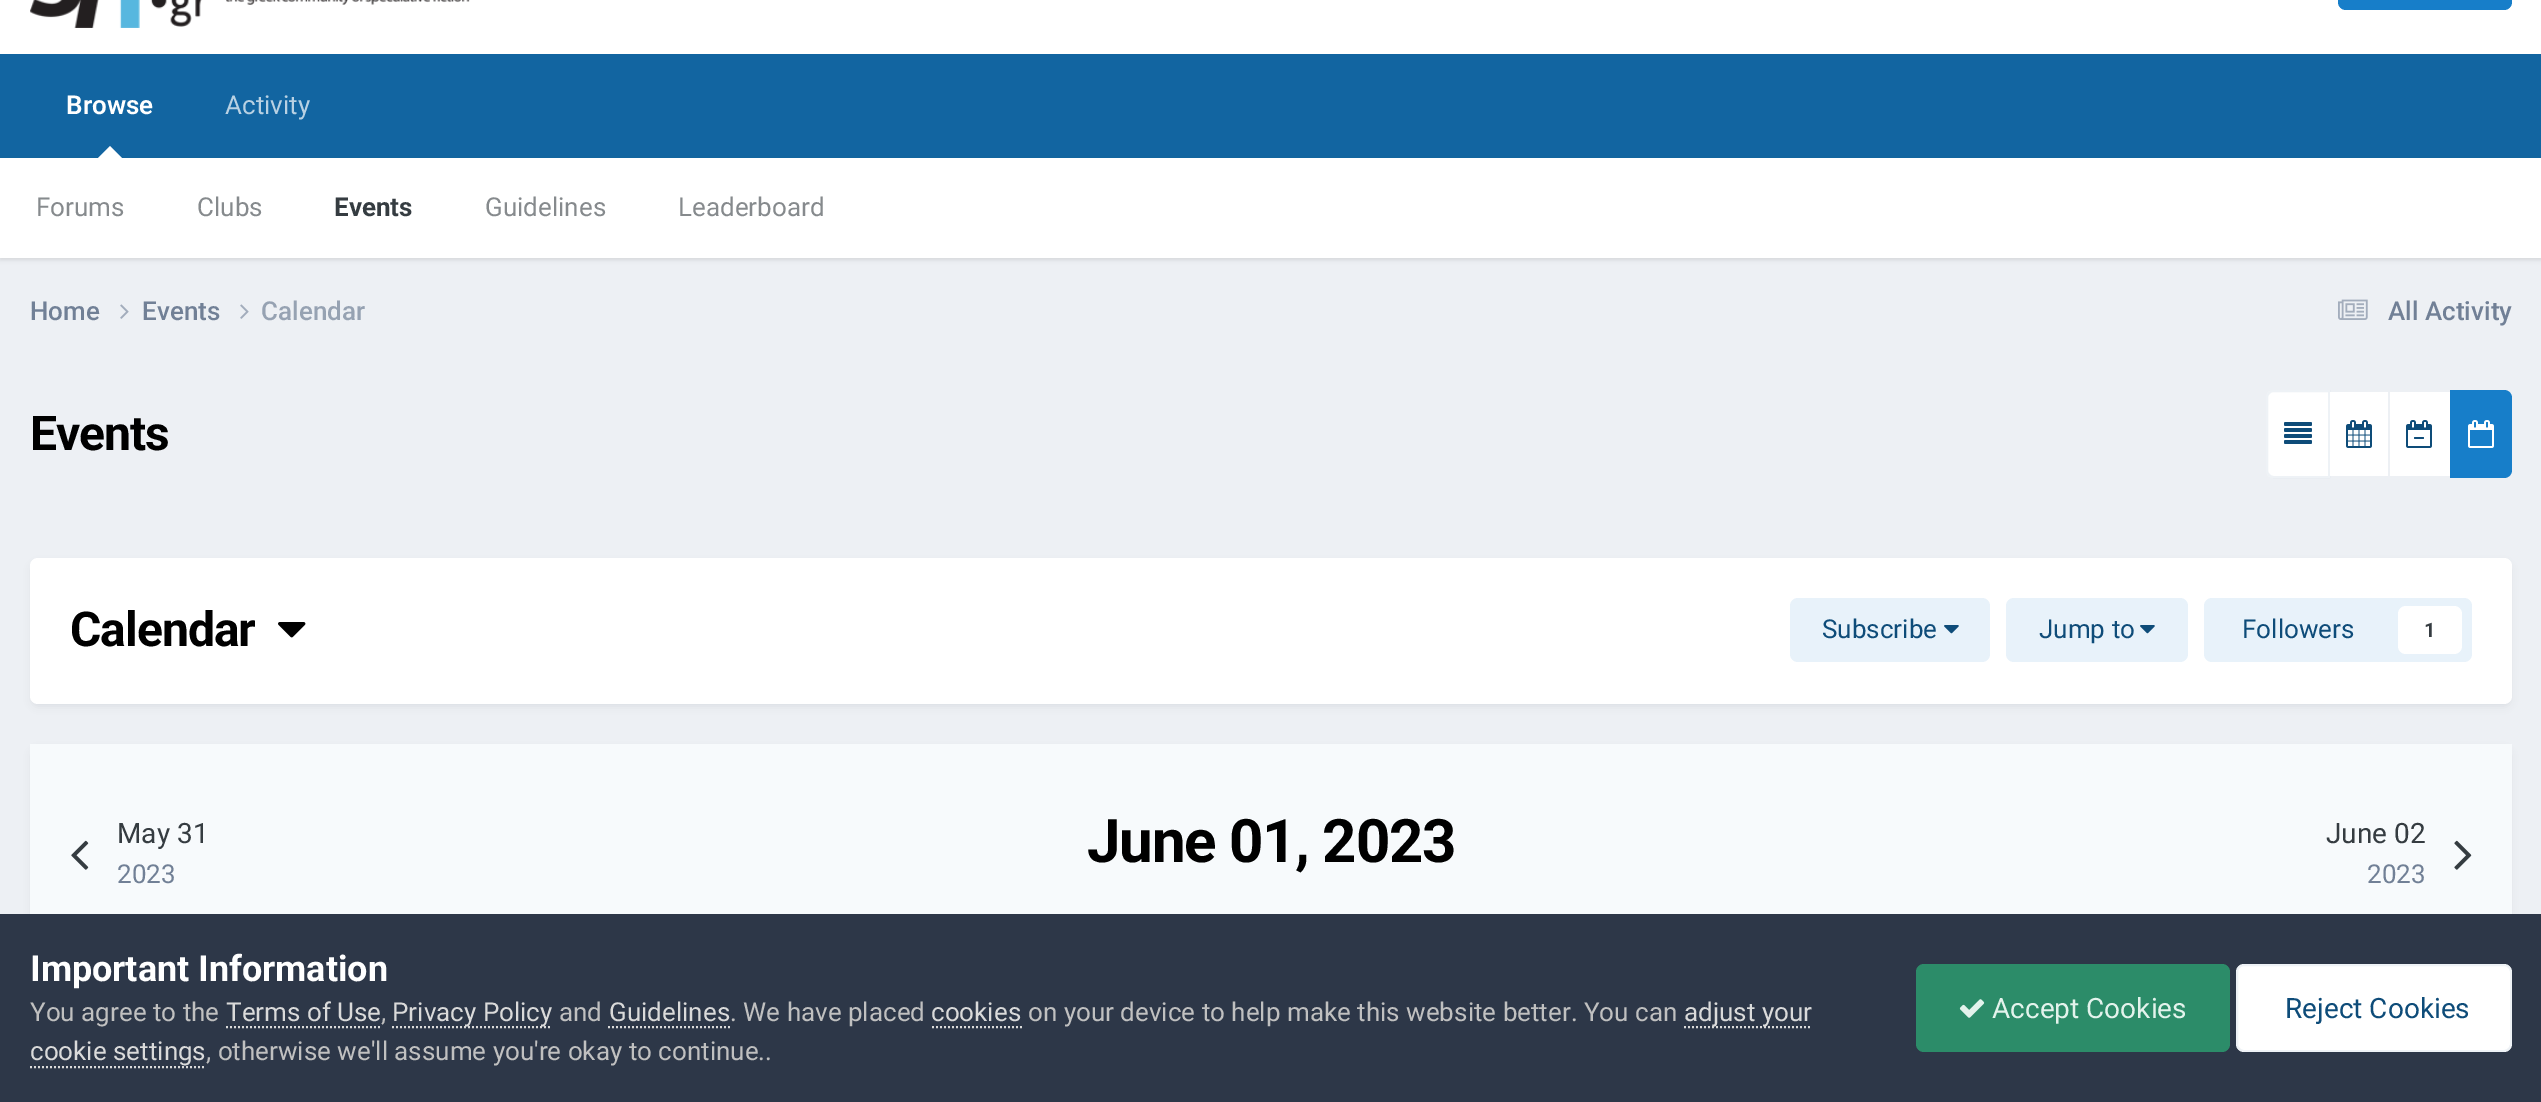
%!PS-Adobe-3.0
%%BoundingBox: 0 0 2541 1102
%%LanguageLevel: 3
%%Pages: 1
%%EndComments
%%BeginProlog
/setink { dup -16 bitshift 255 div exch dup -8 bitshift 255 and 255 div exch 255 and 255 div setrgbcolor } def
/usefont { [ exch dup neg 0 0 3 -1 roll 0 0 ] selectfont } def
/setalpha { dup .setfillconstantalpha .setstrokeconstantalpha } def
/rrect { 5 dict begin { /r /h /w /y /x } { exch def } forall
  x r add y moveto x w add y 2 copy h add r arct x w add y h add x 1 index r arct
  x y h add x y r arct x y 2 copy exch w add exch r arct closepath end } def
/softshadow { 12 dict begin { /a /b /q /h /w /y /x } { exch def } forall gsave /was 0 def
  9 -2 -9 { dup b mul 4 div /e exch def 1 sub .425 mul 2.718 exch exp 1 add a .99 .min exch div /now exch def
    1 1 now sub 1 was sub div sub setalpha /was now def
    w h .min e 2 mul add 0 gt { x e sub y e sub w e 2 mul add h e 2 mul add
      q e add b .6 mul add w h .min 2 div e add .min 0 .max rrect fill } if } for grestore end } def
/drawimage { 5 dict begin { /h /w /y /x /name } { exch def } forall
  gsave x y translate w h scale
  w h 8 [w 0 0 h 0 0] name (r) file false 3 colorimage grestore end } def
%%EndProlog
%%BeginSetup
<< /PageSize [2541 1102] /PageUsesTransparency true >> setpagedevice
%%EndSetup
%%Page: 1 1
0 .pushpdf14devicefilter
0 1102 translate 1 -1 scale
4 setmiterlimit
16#EDF0F4 setink
0 0 2541 1102 rectfill
16#FFFFFF setink
0 0 2541 54 rectfill
(img1.raw) 30 0 440 28 drawimage
16#177EC9 setink
2338 -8 174 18 8 rrect fill
16#1265A1 setink
0 54 2541 104 rectfill
/Roboto-SemiBold 26 usefont
16#FFFFFF setink
66 114 moveto (Browse) show
16#000000 setink
0 160 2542 100 0 2 0.1 softshadow
16#FFFFFF setink
122 158 moveto 98 158 lineto 110 146 lineto closepath fill
0 158 2541 100 rectfill
/Roboto-Regular 26 usefont
16#868A8D setink
36 216 moveto (Forums) show
197 216 moveto (Clubs) show
/Roboto-Bold 26 usefont
16#353C41 setink
334 216 moveto (Events) show
/Roboto-Regular 26 usefont
16#868A8D setink
485 216 moveto (Guidelines) show
678 216 moveto (Leaderboard) show
16#B8D1E3 setink
225 114 moveto (Activity) show
/Roboto-Medium 26 usefont
16#718096 setink
30 320 moveto (Home) show
(img2.raw) 120 304 9 15 drawimage
142 320 moveto (Events) show
(img2.raw) 240 304 9 15 drawimage
16#96A2B2 setink
261 320 moveto (Calendar) show
(img3.raw) 2338 299 30 21 drawimage
16#718096 setink
2388 320 moveto (All Activity) show
/Roboto-Bold 48 usefont
16#000000 setink
30 450 moveto -1 0 (Events) ashow
16#FFFFFF setink
2274 390 moveto 2330 390 lineto 2330 478 lineto 2274 478 lineto 2269.5 478 2266 474.5 2266 470 curveto 2266 398 lineto 2266 393.5 2269.5 390 2274 390 curveto closepath fill
0.07 setalpha
16#0E4C79 setink
2 setlinewidth
2274 391 moveto 2329 391 lineto 2329 477 lineto 2274 477 lineto 2270 477 2267 474 2267 470 curveto 2267 398 lineto 2267 394 2270 391 2274 391 curveto closepath stroke
1 setalpha
(img4.raw) 2284 422 28 22 drawimage
16#FFFFFF setink
2330 392 58 84 rectfill
(img5.raw) 2346 420 26 28 drawimage
2390 392 60 84 rectfill
(img6.raw) 2406 420 26 28 drawimage
16#177EC9 setink
2450 390 moveto 2504 390 lineto 2508.5 390 2512 393.5 2512 398 curveto 2512 470 lineto 2512 474.5 2508.5 478 2504 478 curveto 2450 478 lineto closepath fill
(img7.raw) 2468 420 26 28 drawimage
16#2D3748 setink
32 564 2478 142 6 4 0.1 softshadow
16#FFFFFF setink
30 558 2482 146 8 rrect fill
16#000000 setink
70 646 moveto -1 0 (Calendar) ashow
(img8.raw) 278 622 28 16 drawimage
16#E8F2FA setink
1790 598 200 64 8 rrect fill
/Roboto-Regular 26 usefont
16#0E4C79 setink
1822 638 moveto (Subscribe) show
(img9.raw) 1944 625 15 9 drawimage
16#E8F2FA setink
2006 598 182 64 8 rrect fill
16#0E4C79 setink
2039 638 moveto (Jump to) show
(img9.raw) 2140 625 15 9 drawimage
16#E8F2FA setink
2204 598 268 64 8 rrect fill
16#0E4C79 setink
2242 638 moveto (Followers) show
16#FFFFFF setink
2398 606 64 48 8 rrect fill
/Roboto-Bold 20 usefont
16#353C41 setink
2424 637 moveto (1) show
16#2D3748 setink
32 750 2478 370 6 4 0.1 softshadow
16#F7FAFC setink
30 744 2482 170 rectfill
/Roboto-Regular 28 usefont
16#353C41 setink
117 843 moveto (May 31) show
(img10.raw) 71 840 18 30 drawimage
/Roboto-Regular 26 usefont
16#718096 setink
117 883 moveto (2023) show
/Roboto-Bold 60 usefont
16#000000 setink
1087 862 moveto -1.25 0 (June 01, 2023) ashow
/Roboto-Regular 28 usefont
16#353C41 setink
2326 843 moveto (June 02) show
(img11.raw) 2454 840 18 30 drawimage
/Roboto-Regular 26 usefont
16#718096 setink
2367 883 moveto (2023) show
16#2D3748 setink
0 914 2541 188 rectfill
/Roboto-Bold 36 usefont
16#FFFFFF setink
30 981 moveto (Important Information) show
/Roboto-Regular 26 usefont
16#C0C0C0 setink
30 1021 moveto (You agree to the) show
16#DADADA setink
226 1021 moveto (Terms of Use) show
[2 2] 0 setdash
226 1027 moveto 380 1027 lineto stroke
16#C0C0C0 setink
381 1021 moveto (,) show
16#DADADA setink
392 1027 moveto 552 1027 lineto stroke
392 1021 moveto (Privacy Policy) show
16#C0C0C0 setink
559 1021 moveto (and) show
16#DADADA setink
609 1021 moveto (Guidelines) show
608 1027 moveto 730 1027 lineto stroke
16#C0C0C0 setink
730 1021 moveto (. We have placed) show
16#DADADA setink
931 1021 moveto (cookies) show
932 1027 moveto 1022 1027 lineto stroke
16#C0C0C0 setink
1028 1021 moveto (on your device to help make this website better. You can) show
16#DADADA setink
1684 1027 moveto 1812 1027 lineto stroke
1684 1021 moveto (adjust your) show
30 1060 moveto (cookie settings) show
30 1067 moveto 206 1067 lineto stroke
16#C0C0C0 setink
206 1060 moveto (, otherwise we'll assume you're okay to continue..) show
16#2C8C69 setink
1916 964 314 88 8 rrect fill
(img12.raw) 1959 999 26 19 drawimage
/Roboto-Regular 28 usefont
16#E3F3EC setink
1992 1018 moveto (Accept Cookies) show
16#FFFFFF setink
2236 964 276 88 8 rrect fill
0.07 setalpha
16#0E4C79 setink
[] 0 setdash
2237 965 274 86 7 rrect stroke
1 setalpha
2285 1018 moveto (Reject Cookies) show
.poppdf14devicefilter showpage
%%EOF
